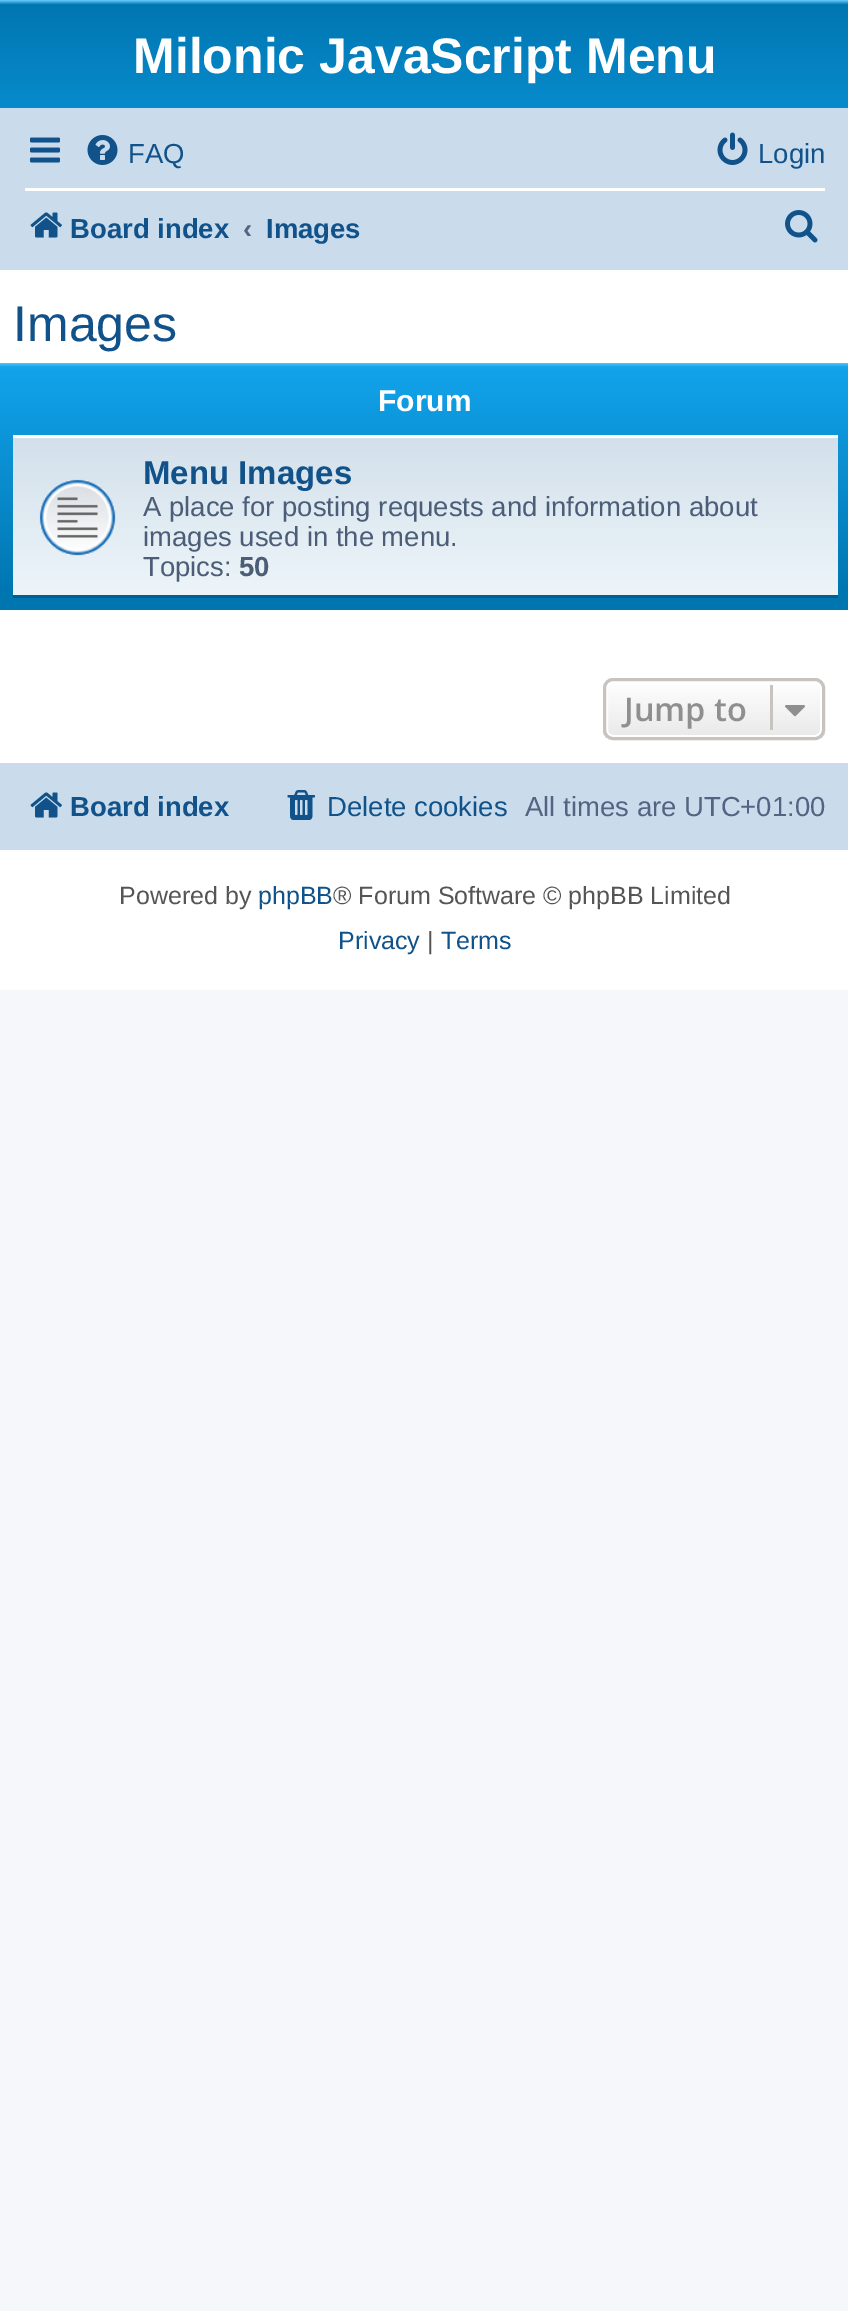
%!PS-Adobe-3.0
%%BoundingBox: 0 0 848 2311
%%LanguageLevel: 3
%%Pages: 1
%%EndComments
%%BeginProlog
/setink { dup -16 bitshift 255 div exch dup -8 bitshift 255 and 255 div exch 255 and 255 div setrgbcolor } def
/usefont { [ exch dup neg 0 0 3 -1 roll 0 0 ] selectfont } def
/rrect { 5 dict begin { /r /h /w /y /x } { exch def } forall
  x r add y moveto x w add y 2 copy h add r arct x w add y h add x 1 index r arct
  x y h add x y r arct x y 2 copy exch w add exch r arct closepath end } def
/drawimage { 5 dict begin { /h /w /y /x /name } { exch def } forall
  gsave x y translate w h scale
  w h 8 [w 0 0 h 0 0] name (r) file false 3 colorimage grestore end } def
%%EndProlog
%%BeginSetup
<< /PageSize [848 2311] >> setpagedevice
%%EndSetup
%%Page: 1 1
0 2311 translate 1 -1 scale
4 setmiterlimit
16#F5F7FA setink
0 0 848 2311 rectfill
16#FFFFFF setink
0 270 848 720 rectfill
gsave 0 0 moveto 848 0 lineto 848 108 lineto 0 108 lineto closepath clip newpath
<< /ShadingType 2 /ColorSpace /DeviceRGB /Coords [425 0 425 230] /Extend [true true] /Function << /FunctionType 3 /Domain [0 1] /Functions [<< /FunctionType 2 /Domain [0 1] /C0 [0.416 0.808 1] /C1 [0 0.463 0.694] /N 1 >> << /FunctionType 2 /Domain [0 1] /C0 [0 0.463 0.694] /C1 [0.071 0.639 0.922] /N 1 >>] /Bounds [0.02] /Encode [0 1 0 1] >> >> shfill grestore
/LiberationSans-Bold 50 usefont
133 73 moveto (Milonic JavaScript Menu) show
16#CADCEB setink
0 108 848 162 rectfill
(img1.raw) 30 137 30 26 drawimage
(img2.raw) 87 135 31 30 drawimage
/LiberationSans-Regular 27.5 usefont
16#105289 setink
128 163 moveto (FAQ) show
(img3.raw) 717 132 31 33 drawimage
758 163 moveto (Login) show
16#FFFFFF setink
25 188 800 3 rectfill
(img4.raw) 30 212 32 26 drawimage
/LiberationSans-Bold 27.5 usefont
16#105289 setink
70 238 moveto (Board index) show
16#536482 setink
243 238 moveto (‹) show
16#105289 setink
266 238 moveto (Images) show
(img5.raw) 785 210 33 33 drawimage
/LiberationSans-Regular 50 usefont
13 341 moveto (Images) show
gsave 0 363 moveto 848 363 lineto 848 610 lineto 0 610 lineto closepath clip newpath
<< /ShadingType 2 /ColorSpace /DeviceRGB /Coords [425 362 425 610] /Extend [true true] /Function << /FunctionType 3 /Domain [0 1] /Functions [<< /FunctionType 2 /Domain [0 1] /C0 [0.416 0.808 1] /C1 [0.071 0.639 0.922] /N 1 >> << /FunctionType 2 /Domain [0 1] /C0 [0.071 0.639 0.922] /C1 [0 0.463 0.694] /N 1 >> << /FunctionType 2 /Domain [0 1] /C0 [0 0.463 0.694] /C1 [0 0.463 0.694] /N 1 >>] /Bounds [0.02 0.93] /Encode [0 1 0 1 0 1] >> >> shfill grestore
/LiberationSans-Bold 30 usefont
16#FFFFFF setink
378 411 moveto (Forum) show
gsave 13 438 moveto 838 438 lineto 838 595 lineto 13 595 lineto closepath clip newpath
<< /ShadingType 2 /ColorSpace /DeviceRGB /Coords [425 435 425 598] /Extend [true true] /Function << /FunctionType 2 /Domain [0 1] /C0 [0.824 0.878 0.922] /C1 [0.933 0.961 0.976] /N 1 >> >> shfill grestore
13 435 825 3 rectfill
16#00608F setink
13 595 825 3 rectfill
(img6.raw) 39 479 77 77 drawimage
/LiberationSans-Bold 33 usefont
16#105289 setink
143 484 moveto (Menu Images) show
/LiberationSans-Regular 27.5 usefont
16#4C5D77 setink
[
    [(A place for posting requests and information about) 143 516]
    [(images used in the menu.) 143 546]
    [(Topics:) 143 576]
] { aload pop moveto show } forall
/LiberationSans-Bold 27.5 usefont
239 576 moveto (50) show
gsave
603 678 222 62 10 rrect clip newpath
gsave 603 680 moveto 825 680 lineto 825 738 lineto 603 738 lineto closepath clip newpath
<< /ShadingType 2 /ColorSpace /DeviceRGB /Coords [714 680 714 738] /Extend [true true] /Function << /FunctionType 2 /Domain [0 1] /C0 [1 1 1] /C1 [0.914 0.914 0.914] /N 1 >> >> shfill grestore
grestore
16#FFFFFF setink
3 setlinewidth
606.5 681.5 215 55 6.5 rrect stroke
16#C7C3BF setink
604.5 679.5 219 59 8.5 rrect stroke
/OpenSans-SemiBold 32.5 usefont
16#8F8F8F setink
624 721 moveto (Jump to) show
16#C7C3BF setink
770 685 3 45 rectfill
(img7.raw) 785 705 20 12 drawimage
16#CADCEB setink
0 763 848 87 rectfill
(img4.raw) 30 792 32 26 drawimage
/LiberationSans-Bold 27.5 usefont
16#105289 setink
70 816 moveto (Board index) show
(img8.raw) 287 790 28 30 drawimage
/LiberationSans-Regular 27.5 usefont
327 816 moveto (Delete cookies) show
16#536482 setink
525 816 moveto (All times are UTC+01:00) show
/LiberationSans-Regular 25 usefont
16#555555 setink
119 904 moveto (Powered by) show
16#105289 setink
258 904 moveto (phpBB) show
16#555555 setink
333 904 moveto (® Forum Software © phpBB Limited) show
16#105289 setink
338 949 moveto (Privacy) show
16#555555 setink
427 949 moveto (|) show
16#105289 setink
441 949 moveto (Terms) show
showpage
%%EOF
